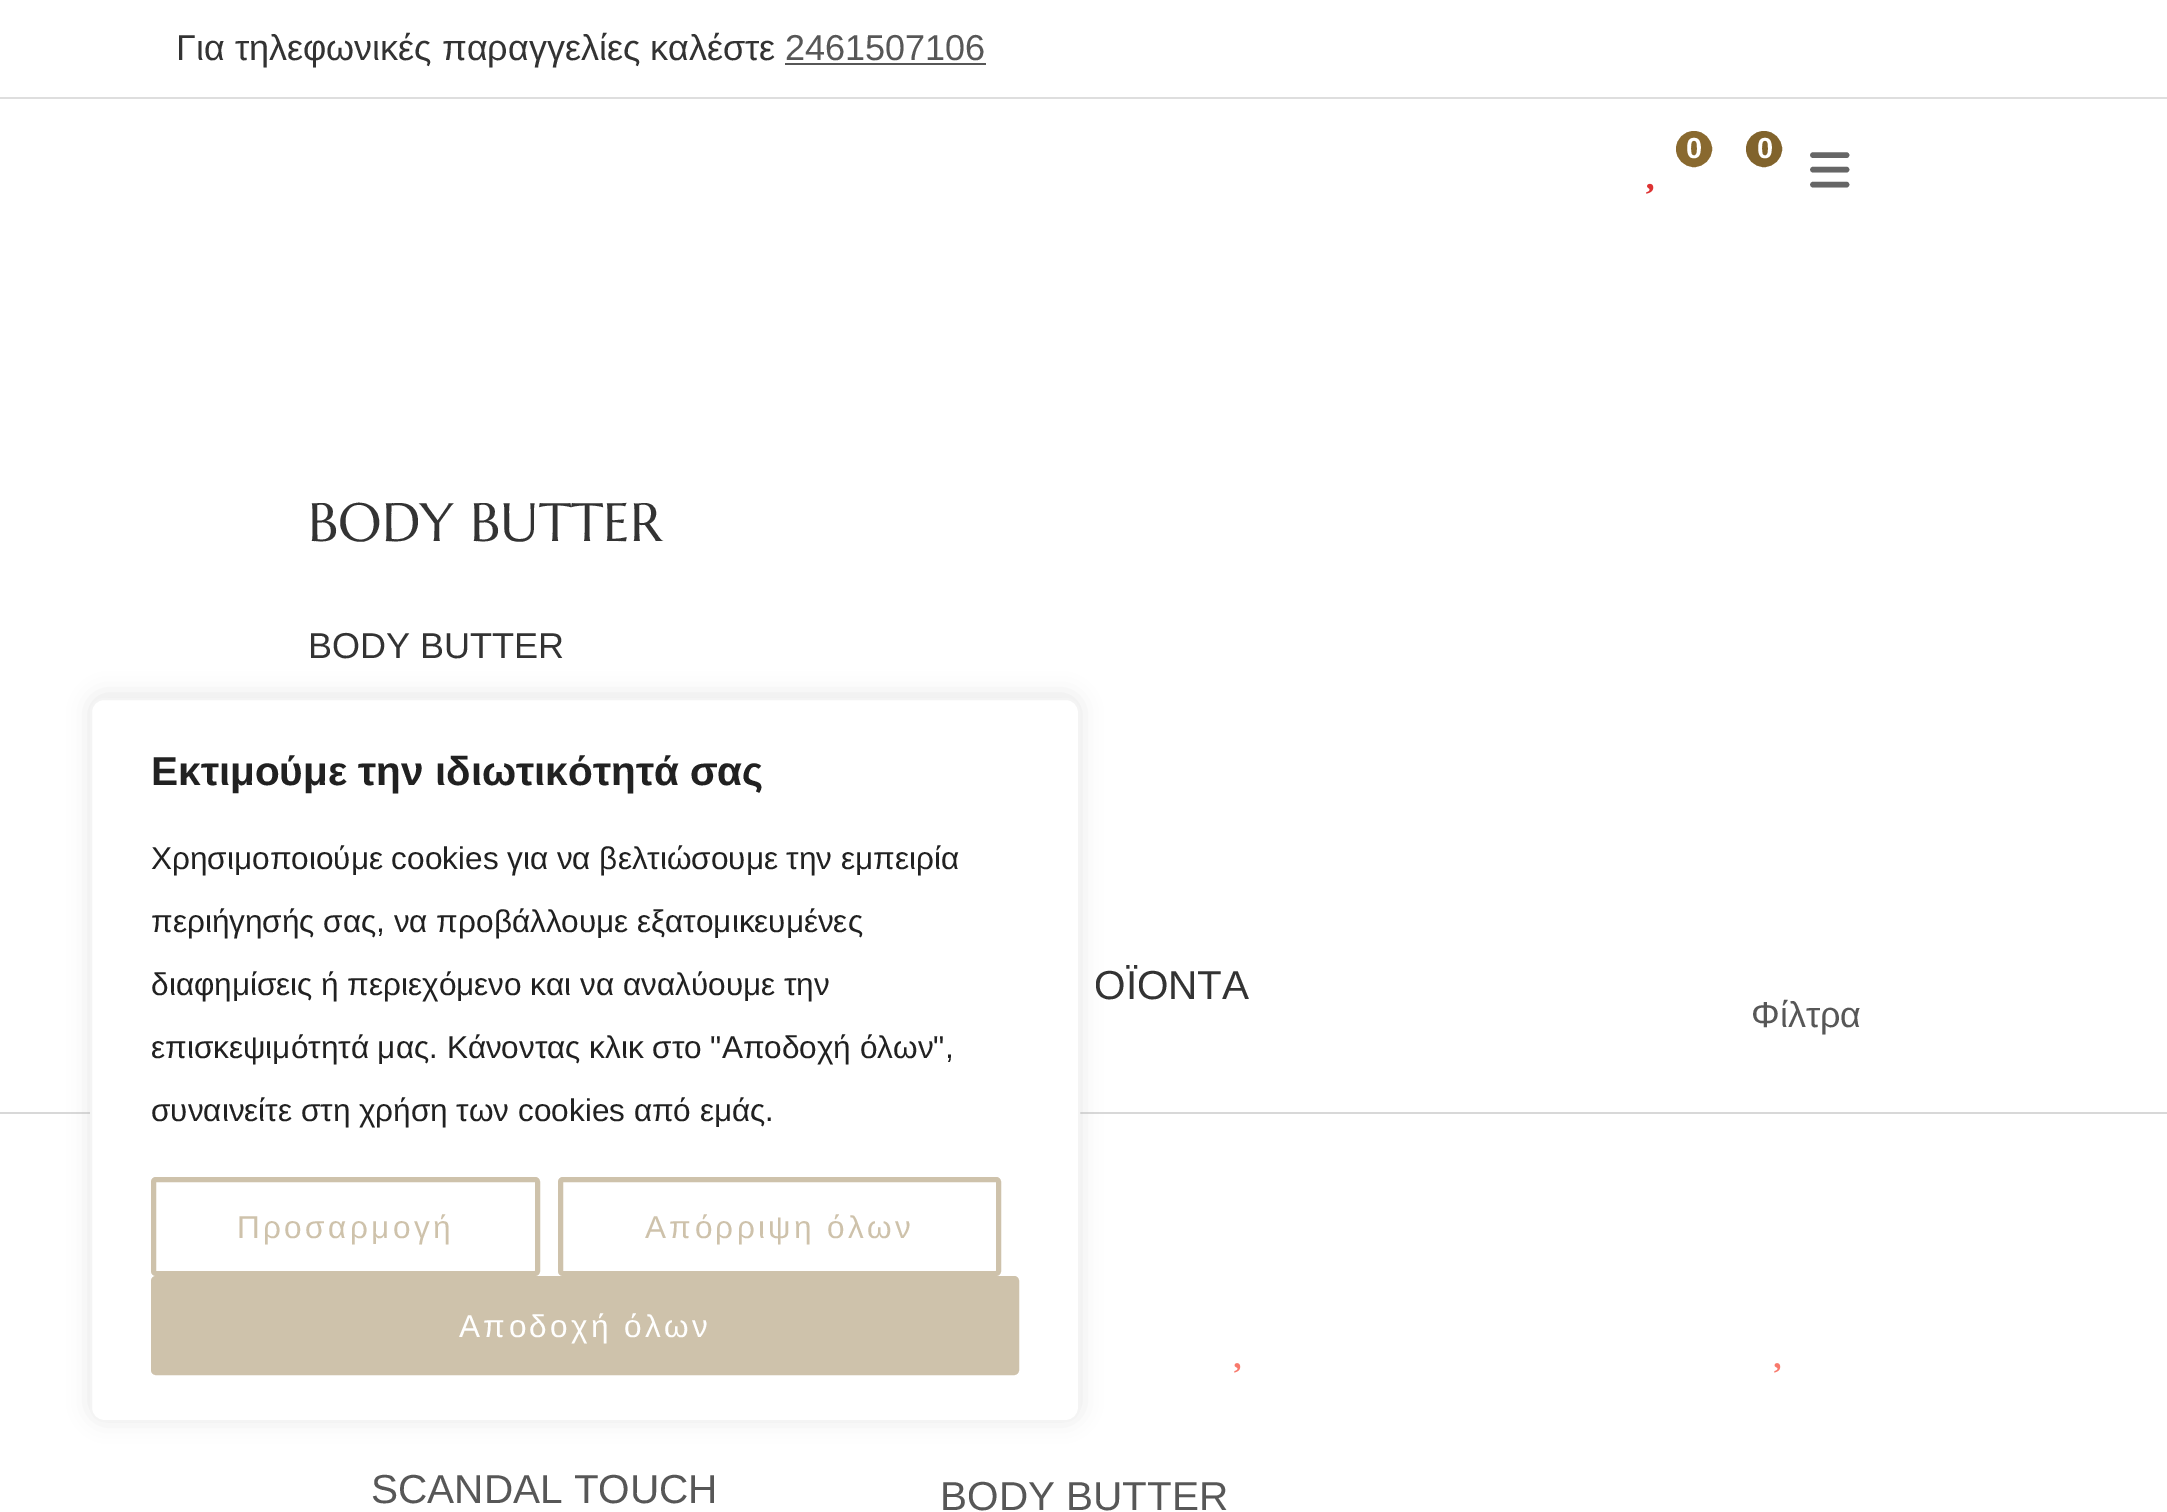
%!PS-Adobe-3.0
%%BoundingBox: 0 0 2167 1512
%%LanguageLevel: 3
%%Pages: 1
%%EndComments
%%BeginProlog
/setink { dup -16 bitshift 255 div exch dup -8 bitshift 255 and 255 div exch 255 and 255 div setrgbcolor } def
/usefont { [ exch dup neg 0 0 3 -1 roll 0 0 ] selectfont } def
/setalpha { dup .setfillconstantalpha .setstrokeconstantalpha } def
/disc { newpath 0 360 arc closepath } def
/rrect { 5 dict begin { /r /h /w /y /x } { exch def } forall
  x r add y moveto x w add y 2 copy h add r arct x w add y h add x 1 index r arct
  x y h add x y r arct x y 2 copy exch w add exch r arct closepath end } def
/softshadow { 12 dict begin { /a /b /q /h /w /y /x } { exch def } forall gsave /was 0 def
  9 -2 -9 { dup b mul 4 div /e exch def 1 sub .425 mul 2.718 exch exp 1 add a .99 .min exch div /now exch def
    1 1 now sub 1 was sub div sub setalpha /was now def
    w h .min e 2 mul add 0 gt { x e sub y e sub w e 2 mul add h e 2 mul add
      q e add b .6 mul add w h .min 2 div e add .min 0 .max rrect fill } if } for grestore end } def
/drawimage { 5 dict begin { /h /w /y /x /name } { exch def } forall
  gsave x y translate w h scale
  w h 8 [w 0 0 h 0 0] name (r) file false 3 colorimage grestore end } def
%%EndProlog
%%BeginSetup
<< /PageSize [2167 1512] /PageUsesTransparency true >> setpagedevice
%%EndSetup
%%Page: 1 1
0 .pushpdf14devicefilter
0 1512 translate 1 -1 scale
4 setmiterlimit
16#FFFFFF setink
0 0 2167 1512 rectfill
16#DEDEDE setink
0 97 2167 2 rectfill
/LiberationSans-Regular 36 usefont
16#333333 setink
176 60 moveto (Για τηλεφωνικές παραγγελίες καλέστε) show
16#575757 setink
785 60 moveto (2461507106) show
785 63 201 2 rectfill
16#89692F setink
1694 149 17 disc gsave fill grestore
2 setlinewidth
stroke
/LiberationSans-Bold 29 usefont
16#FFFFFF setink
1686 158 moveto (0) show
(img1.raw) 1646 183 8 11 drawimage
16#81632C setink
1764 149 17 disc gsave fill grestore
stroke
16#FFFFFF setink
1757 158 moveto (0) show
16#666666 setink
5.6 setlinewidth
1 setlinecap
1813 155 moveto 1846.5 155 lineto 1813 169.5 moveto 1846.5 169.5 lineto 1813 184.5 moveto 1846.5 184.5 lineto stroke
/Marcellus-Regular 54 usefont
16#333333 setink
308 541 moveto (BODY BUTTER) show
/LiberationSans-Regular 36 usefont
308 658 moveto (BODY BUTTER) show
16#D8D8D8 setink
0 1112 2167 2 rectfill
/LiberationSans-Regular 40.5 usefont
16#333333 setink
1094 999 moveto (ΟΪΟΝΤΑ) show
/LiberationSans-Regular 36 usefont
16#575757 setink
1751 1027 moveto (Φίλτρα) show
(img2.raw) 1774 1363 7 10 drawimage
/LiberationSans-Regular 40.5 usefont
371 1503 moveto (SCANDAL TOUCH) show
(img2.raw) 1234 1363 7 10 drawimage
940 1510 moveto (BODY BUTTER) show
16#ACABAB setink
90 695 990 725 14 11 0.3 softshadow
16#FFFFFF setink
91 699 988 722 13 rrect gsave fill grestore
16#F4F4F4 setink
2 setlinewidth
0 setlinecap
stroke
/LiberationSans-Bold 40.5 usefont
16#212121 setink
151 785 moveto (Εκτιμούμε την ιδιωτικότητά σας) show
/LiberationSans-Regular 31.5 usefont
[
    [(Χρησιμοποιούμε cookies για να βελτιώσουμε την εμπειρία) 151 869]
    [(περιήγησής σας, να προβάλλουμε εξατομικευμένες) 151 932]
    [(διαφημίσεις ή περιεχόμενο και να αναλύουμε την) 151 995]
    [(επισκεψιμότητά μας. Κάνοντας κλικ στο "Αποδοχή όλων",) 151 1058]
    [(συναινείτε στη χρήση των cookies από εμάς.) 151 1121]
] { aload pop moveto show } forall
16#CEC2AB setink
5 setlinewidth
153.5 1179.5 384 94 2.5 rrect stroke
237 1238 moveto 3.4 0 (Προσαρμογή) ashow
560.5 1179.5 438 94 2.5 rrect stroke
645 1238 moveto 3.4 0 (Απόρριψη όλων) ashow
153.5 1278.5 863 94 2.5 rrect gsave fill grestore
stroke
16#FFFFFF setink
459 1337 moveto 3.4 0 (Αποδοχή όλων) ashow
.poppdf14devicefilter showpage
%%EOF
